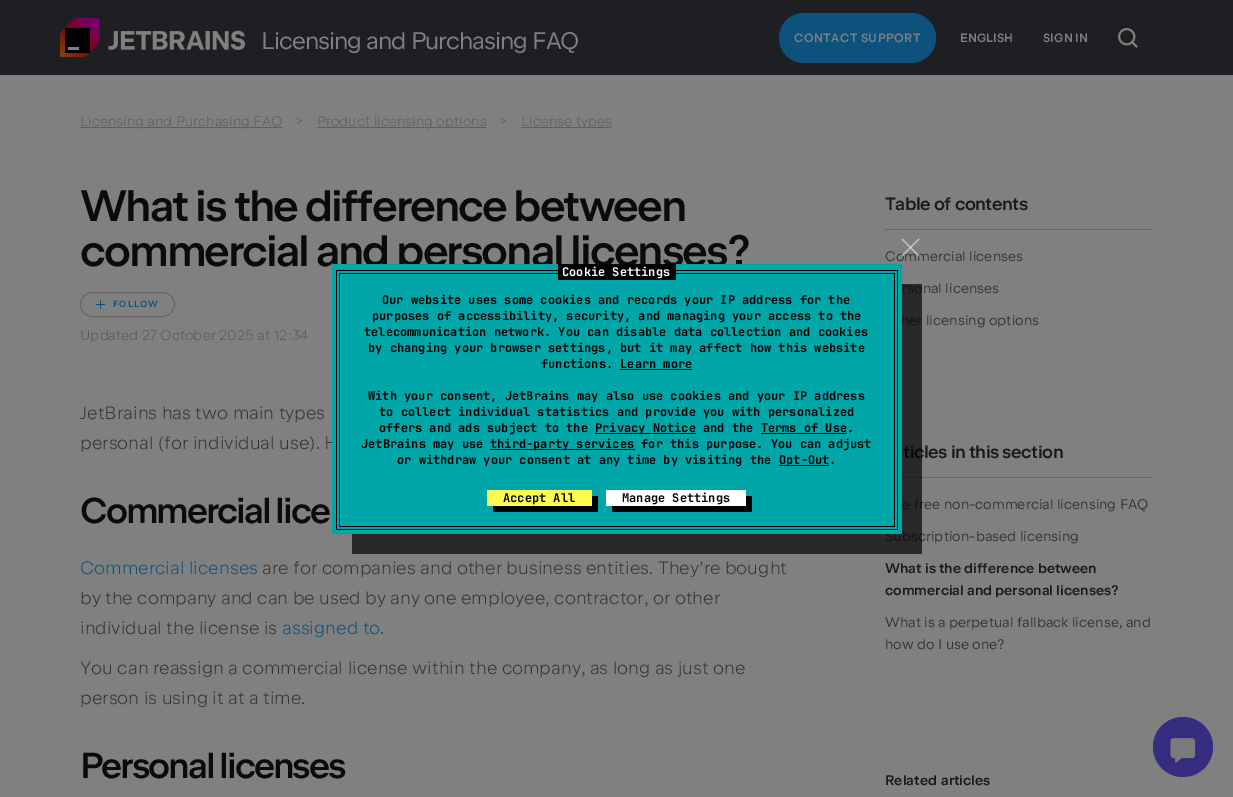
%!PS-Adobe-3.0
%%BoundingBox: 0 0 1233 797
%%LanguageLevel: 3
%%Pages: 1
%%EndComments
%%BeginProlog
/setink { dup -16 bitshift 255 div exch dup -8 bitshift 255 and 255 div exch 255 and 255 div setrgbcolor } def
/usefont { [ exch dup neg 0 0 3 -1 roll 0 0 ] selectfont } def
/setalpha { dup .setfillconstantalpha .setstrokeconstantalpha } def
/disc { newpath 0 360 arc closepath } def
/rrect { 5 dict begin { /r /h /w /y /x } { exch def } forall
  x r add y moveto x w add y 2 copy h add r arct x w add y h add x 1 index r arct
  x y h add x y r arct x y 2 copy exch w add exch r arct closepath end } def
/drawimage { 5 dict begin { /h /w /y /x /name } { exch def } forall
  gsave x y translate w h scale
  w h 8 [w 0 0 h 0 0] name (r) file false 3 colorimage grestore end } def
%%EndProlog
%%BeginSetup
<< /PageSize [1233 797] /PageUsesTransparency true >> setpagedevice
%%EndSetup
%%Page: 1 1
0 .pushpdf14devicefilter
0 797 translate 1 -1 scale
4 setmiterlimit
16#808080 setink
0 0 1233 797 rectfill
16#1E1F22 setink
0 0 1233 75 rectfill
(img1.raw) 60 18 185 39 drawimage
/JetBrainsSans-Regular 24 usefont
16#808080 setink
261 49 moveto -1 0 (Licensing and Purchasing FAQ) ashow
16#0C527D setink
779 13 157 50 25 rrect fill
/JetBrainsSans-SemiBold 12 usefont
16#808080 setink
794 42 moveto 0.5 0 (CONTACT SUPPORT) ashow
960 42 moveto (ENGLISH) show
1043 42 moveto (SIGN IN) show
(img2.raw) 1118 28 20 20 drawimage
16#5C5E60 setink
80 127 202 1 rectfill
/JetBrainsSans-Light 14 usefont
80 126 moveto (Licensing and Purchasing FAQ) show
/JetBrainsSans-Regular 14 usefont
296 125 moveto (>) show
317 127 169 1 rectfill
/JetBrainsSans-Light 14 usefont
317 126 moveto (Product licensing options) show
/JetBrainsSans-Regular 14 usefont
500 125 moveto (>) show
521 127 91 1 rectfill
/JetBrainsSans-Light 14 usefont
521 126 moveto (License types) show
/JetBrainsSans-SemiBold 44 usefont
16#0B0B0B setink
80 221 moveto -2 0 (What is the difference between) ashow
80 266 moveto -2 0 (commercial and personal licenses?) ashow
16#666666 setink
80.5 292.5 94 24 12 rrect stroke
(img3.raw) 96 300 9 9 drawimage
/JetBrainsSans-SemiBold 9 usefont
16#0C527D setink
113 307 moveto 1 0 (FOLLOW) ashow
/JetBrainsSans-Light 14 usefont
16#58595A setink
80 340 moveto (Updated 27 October 2025 at 12:34) show
/JetBrainsSans-Light 18 usefont
16#353535 setink
80 419 moveto (JetBrains has two main types) show
80 449 moveto (personal \(for individual use\). H) show
/JetBrainsSans-SemiBold 36 usefont
16#0B0B0B setink
80 523 moveto -2 0 (Commercial lice) ashow
/JetBrainsSans-Light 18 usefont
16#0C527D setink
80 574 moveto (Commercial licenses) show
16#353535 setink
[
    [(are for companies and other business entities. They’re bought) 262 574]
    [(by the company and can be used by any one employee, contractor, or other) 80 604]
    [(individual the license is) 80 634]
] { aload pop moveto show } forall
16#0C527D setink
282 634 moveto (assigned to) show
16#353535 setink
[
    [(.) 380 634]
    [(You can reassign a commercial license within the company, as long as just one) 80 674]
    [(person is using it at a time.) 80 704]
] { aload pop moveto show } forall
/JetBrainsSans-SemiBold 36 usefont
16#0B0B0B setink
80 778 moveto -2 0 (Personal licenses) ashow
16#666666 setink
885 229 268 1 rectfill
/JetBrainsSans-SemiBold 18 usefont
16#1A1A1A setink
885 210 moveto -0.5 0 (Table of contents) ashow
/JetBrainsSans-Regular 14 usefont
16#353535 setink
[
    [(Commercial licenses) 885 261]
    [(rsonal licenses) 902 293]
    [(her licensing options) 901 325]
] { aload pop moveto show } forall
16#666666 setink
902 477 251 1 rectfill
/JetBrainsSans-SemiBold 18 usefont
16#1A1A1A setink
903 458 moveto -0.5 0 (ticles in this section) ashow
/JetBrainsSans-Regular 14 usefont
16#353535 setink
902 509 moveto (e free non-commercial licensing FAQ) show
885 541 moveto (Subscription-based licensing) show
/JetBrainsSans-SemiBold 14 usefont
16#1A1A1A setink
885 573 moveto (What is the difference between) show
885 595 moveto (commercial and personal licenses?) show
/JetBrainsSans-Regular 14 usefont
16#353535 setink
885 627 moveto (What is a perpetual fallback license, and) show
885 649 moveto (how do I use one?) show
/JetBrainsSans-SemiBold 14 usefont
16#1A1A1A setink
885 785 moveto 1 0 32 (Related articles) widthshow
0.68 setalpha
16#000000 setink
352 534 moveto 352 554 lineto 922 554 lineto 922 284 lineto 902 284 lineto 902 534 lineto closepath fill
1 setalpha
16#01A7A8 setink
332 264 570 270 rectfill
0.5 setalpha
16#FFFFFF setink
901.5 255.5 moveto 918.5 238.5 lineto 919.5 239.5 lineto 902.5 256.5 lineto closepath fill
902.5 238.5 moveto 919.5 255.5 lineto 918.5 256.5 lineto 901.5 239.5 lineto closepath fill
1 setalpha
[
    [339 273 556 1 16#000000]
    [894 273 1 254 16#000000]
    [339 273 1 217 16#000000]
    [336 270 562 1 16#000000]
    [558 264 118 16 16#000000]
] { aload pop setink rectfill } forall
/JetBrainsMono-Bold 12 usefont
16#FFFFFF setink
562 276 moveto (Cookie Settings) show
16#000000 setink
897 270 1 260 rectfill
336 270 1 219 rectfill
[
    [(Our website uses some cookies and records your IP address for the) 382 304]
    [(purposes of accessibility, security, and managing your access to the) 372 320]
    [(telecommunication network. You can disable data collection and cookies) 364 336]
    [(by changing your browser settings, but it may affect how this website) 368 352]
    [(functions. Learn more) 541 368]
] { aload pop moveto show } forall
620 369 72 1 rectfill
[
    [(With your consent, JetBrains may also use cookies and your IP address) 368 400]
    [(to collect individual statistics and provide you with personalized) 379 416]
    [(offers and ads subject to the) 379 432]
] { aload pop moveto show } forall
595 433 101 1 rectfill
595 432 moveto (Privacy Notice and the Terms of Use.) show
761 433 86 1 rectfill
361 448 moveto (JetBrains may use) show
490 449 145 1 rectfill
490 448 moveto (third-party services for this purpose. You can adjust) show
397 464 moveto (or withdraw your consent at any time by visiting the) show
779 465 50 1 rectfill
779 464 moveto (Opt-Out.) show
[
    [339 526 556 1 16#000000]
    [339 490 1 37 16#000000]
    [336 529 562 1 16#000000]
    [336 489 1 41 16#000000]
] { aload pop setink rectfill } forall
493 506 moveto 493 512 lineto 598 512 lineto 598 496 lineto 592 496 lineto 592 506 lineto closepath fill
16#FEFC4F setink
487 490 105 16 rectfill
16#000000 setink
503 502 moveto (Accept All) show
612 506 moveto 612 512 lineto 752 512 lineto 752 496 lineto 746 496 lineto 746 506 lineto closepath fill
16#FFFFFF setink
606 490 140 16 rectfill
16#000000 setink
622 502 moveto (Manage Settings) show
16#362C80 setink
1183 747 30 disc fill
(img4.raw) 1170 738 26 25 drawimage
.poppdf14devicefilter showpage
%%EOF
